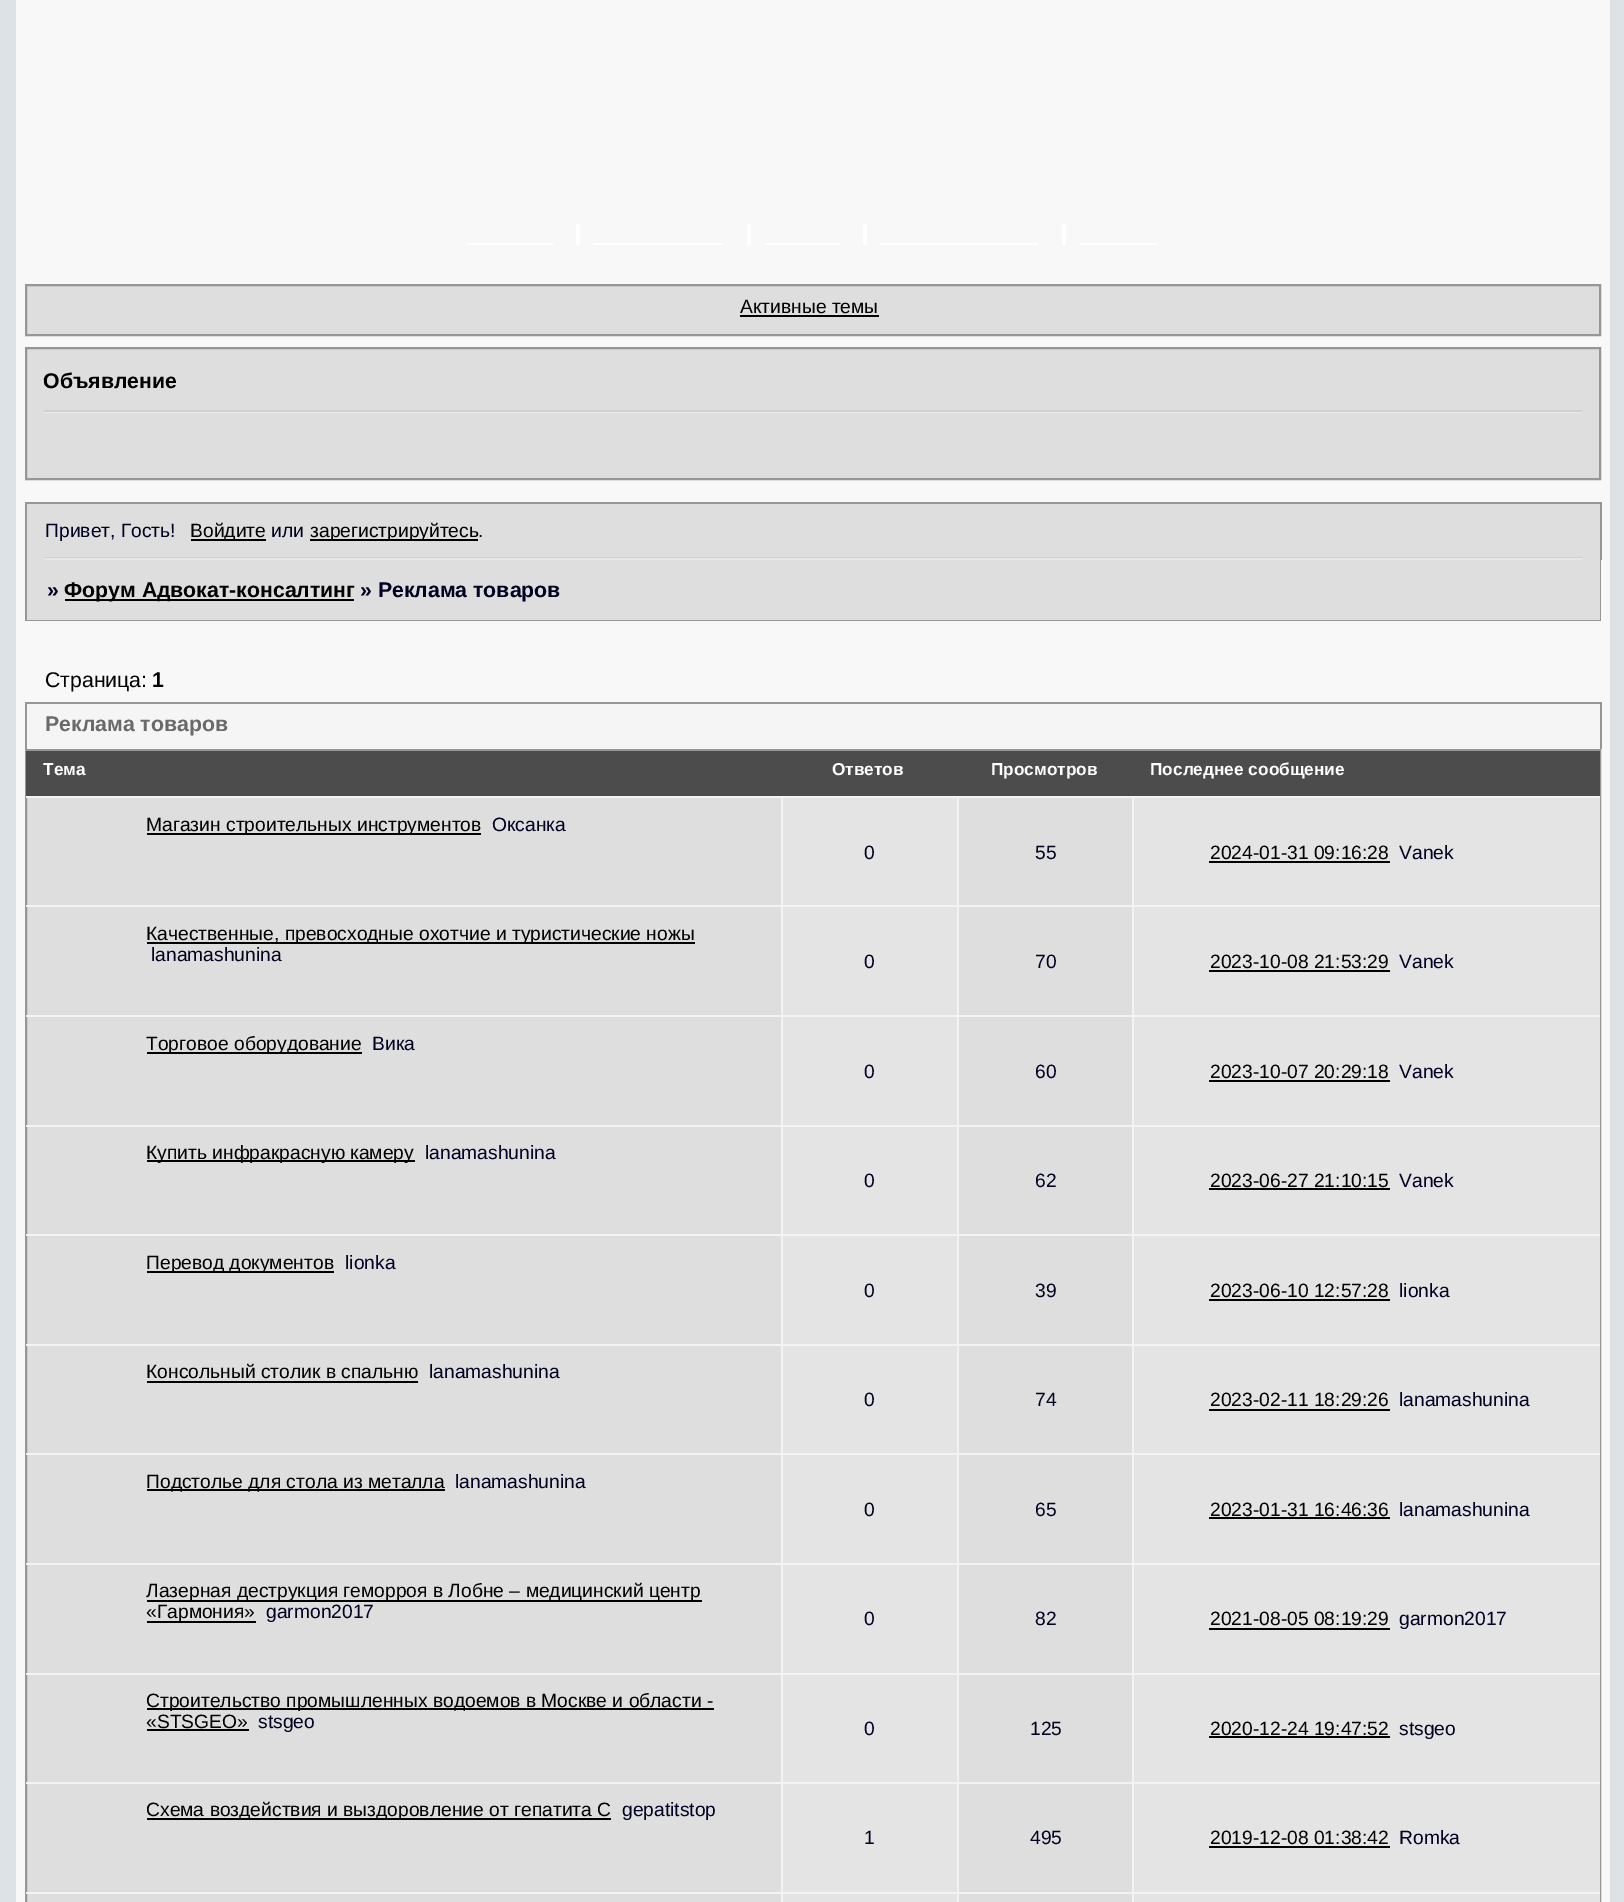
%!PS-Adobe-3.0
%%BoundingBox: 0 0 1624 1902
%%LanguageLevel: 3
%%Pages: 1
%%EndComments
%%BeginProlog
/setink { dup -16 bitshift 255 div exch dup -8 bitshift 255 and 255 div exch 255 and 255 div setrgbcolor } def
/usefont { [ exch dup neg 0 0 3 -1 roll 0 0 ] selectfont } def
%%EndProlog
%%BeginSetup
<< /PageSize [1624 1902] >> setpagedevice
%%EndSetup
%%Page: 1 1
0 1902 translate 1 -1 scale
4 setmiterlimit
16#DCE2E6 setink
0 0 1624 1902 rectfill
[
    [16 0 1594 1902 16#F8F8F8]
    [467 243 86 2 16#FFFFFF]
    [576 224 4 21 16#FFFFFF]
    [593 243 130 2 16#FFFFFF]
    [747 224 4 21 16#FFFFFF]
    [765 243 75 2 16#FFFFFF]
    [863 224 4 21 16#FFFFFF]
    [880 243 158 2 16#FFFFFF]
    [1062 224 4 21 16#FFFFFF]
    [1080 243 77 2 16#FFFFFF]
] { aload pop setink rectfill } forall
16#DEDEDF setink
26 285 moveto 1600 285 lineto 1600 335 lineto 26 335 lineto closepath gsave fill grestore
16#969696 setink
2 setlinewidth
stroke
/LiberationSans-Regular 19.25 usefont
16#000000 setink
740 313 moveto (Активные темы) show
740 315 139 2 rectfill
16#DEDEDF setink
26 348 moveto 1600 348 lineto 1600 479 lineto 26 479 lineto closepath gsave fill grestore
16#969696 setink
stroke
16#E8E8EB setink
44 412 1538 1 rectfill
16#CFCFD1 setink
44 410 1538 2 rectfill
/LiberationSans-Bold 21.25 usefont
16#000000 setink
43 388 moveto (Объявление) show
[
    [27 504 1573 116 16#DEDEDF]
    [25 502 1576 2 16#969696]
    [1600 502 2 58 16#969696]
    [25 502 2 58 16#969696]
] { aload pop setink rectfill } forall
/LiberationSans-Regular 19.25 usefont
16#000020 setink
45 537 moveto (Привет, Гость!) show
16#000000 setink
191 539 75 2 rectfill
190 537 moveto (Войдите) show
16#000020 setink
271 537 moveto (или) show
16#000000 setink
310 539 168 2 rectfill
310 537 moveto (зарегистрируйтесь) show
16#000020 setink
478 537 moveto (.) show
[
    [44 557 1538 1 16#CFCFD1]
    [44 558 1538 2 16#E8E8EB]
    [1600 557 1 64 16#969696]
    [25 620 1576 1 16#969696]
    [25 557 2 64 16#969696]
] { aload pop setink rectfill } forall
/LiberationSans-Bold 21.25 usefont
16#000020 setink
47 597 moveto (») show
16#000000 setink
65 599 289 2 rectfill
64 597 moveto (Форум Адвокат-консалтинг) show
16#000020 setink
360 597 moveto (» Реклама товаров) show
/LiberationSans-Regular 21.25 usefont
16#000000 setink
45 687 moveto (Страница:) show
/LiberationSans-Bold 21.25 usefont
152 687 moveto (1) show
[
    [27 704 1573 45 16#F5F5F5]
    [25 702 1576 2 16#969696]
    [1600 702 2 47 16#969696]
    [25 702 2 47 16#969696]
] { aload pop setink rectfill } forall
16#6A6A6A setink
45 731 moveto (Реклама товаров) show
16#DEDEDF setink
27 798 1105 1104 rectfill
16#969696 setink
26 750 1574 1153 rectstroke
16#4C4C4C setink
26 751 1574 45 rectfill
/LiberationSans-Bold 17.25 usefont
16#FFFFFF setink
[
    [(Тема) 43 775]
    [(Ответов) 832 775]
    [(Просмотров) 991 775]
    [(Последнее сообщение) 1150 775]
] { aload pop moveto show } forall
16#000000 setink
147 833 334 2 rectfill
/LiberationSans-Regular 19.25 usefont
146 831 moveto (Магазин строительных инструментов) show
16#000020 setink
492 831 moveto (Оксанка) show
[
    [783 798 174 107 16#E4E4E4]
    [26 796 1574 2 16#F3F3F3]
    [781 796 2 109 16#F3F3F3]
] { aload pop setink rectfill } forall
16#000020 setink
864 859 moveto (0) show
16#F3F3F3 setink
957 796 2 109 rectfill
16#000020 setink
1035 859 moveto (55) show
[
    [1134 798 466 107 16#E4E4E4]
    [26 905 1574 2 16#F3F3F3]
    [26 1015 1574 2 16#F3F3F3]
    [26 1125 1574 2 16#F3F3F3]
    [26 1234 1574 2 16#F3F3F3]
    [26 1344 1574 2 16#F3F3F3]
    [26 1453 1574 2 16#F3F3F3]
    [26 1563 1574 2 16#F3F3F3]
    [26 1673 1574 2 16#F3F3F3]
    [26 1782 1574 2 16#F3F3F3]
    [26 1892 1574 2 16#F3F3F3]
    [1132 796 2 1106 16#F3F3F3]
] { aload pop setink rectfill } forall
16#000000 setink
1210 859 moveto (2024-01-31 09:16:28) show
1209 861 181 2 rectfill
16#000020 setink
1399 859 moveto (Vanek) show
16#000000 setink
147 942 548 2 rectfill
146 940 moveto (Качественные, превосходные охотчие и туристические ножы) show
16#000020 setink
151 961 moveto (lanamashunina) show
16#E4E4E4 setink
783 907 174 108 rectfill
16#F3F3F3 setink
781 905 2 110 rectfill
16#000020 setink
864 968 moveto (0) show
16#F3F3F3 setink
957 905 2 110 rectfill
16#000020 setink
1035 968 moveto (70) show
16#E4E4E4 setink
1134 907 466 108 rectfill
16#000000 setink
1210 968 moveto (2023-10-08 21:53:29) show
1209 970 181 2 rectfill
16#000020 setink
1399 968 moveto (Vanek) show
16#000000 setink
147 1052 215 2 rectfill
146 1050 moveto (Торговое оборудование) show
16#000020 setink
372 1050 moveto (Вика) show
16#E4E4E4 setink
783 1017 174 108 rectfill
16#F3F3F3 setink
781 1015 2 110 rectfill
16#000020 setink
864 1078 moveto (0) show
16#F3F3F3 setink
957 1015 2 110 rectfill
16#000020 setink
1035 1078 moveto (60) show
16#E4E4E4 setink
1134 1017 466 108 rectfill
16#000000 setink
1210 1078 moveto (2023-10-07 20:29:18) show
1209 1080 181 2 rectfill
16#000020 setink
1399 1078 moveto (Vanek) show
16#000000 setink
147 1160 268 2 rectfill
146 1159 moveto (Купить инфракрасную камеру) show
16#000020 setink
425 1159 moveto (lanamashunina) show
16#E4E4E4 setink
783 1127 174 107 rectfill
16#F3F3F3 setink
781 1125 2 109 rectfill
16#000020 setink
864 1187 moveto (0) show
16#F3F3F3 setink
957 1125 2 109 rectfill
16#000020 setink
1035 1187 moveto (62) show
16#E4E4E4 setink
1134 1127 466 107 rectfill
16#000000 setink
1210 1187 moveto (2023-06-27 21:10:15) show
1209 1188 181 2 rectfill
16#000020 setink
1399 1187 moveto (Vanek) show
16#000000 setink
147 1271 187 2 rectfill
146 1269 moveto (Перевод документов) show
16#000020 setink
345 1269 moveto (lionka) show
16#E4E4E4 setink
783 1236 174 108 rectfill
16#F3F3F3 setink
781 1234 2 110 rectfill
16#000020 setink
864 1297 moveto (0) show
16#F3F3F3 setink
957 1234 2 110 rectfill
16#000020 setink
1035 1297 moveto (39) show
16#E4E4E4 setink
1134 1236 466 108 rectfill
16#000000 setink
1210 1297 moveto (2023-06-10 12:57:28) show
1209 1299 181 2 rectfill
16#000020 setink
1399 1297 moveto (lionka) show
16#000000 setink
146 1378 moveto (Консольный столик в спальню) show
147 1381 271 2 rectfill
16#000020 setink
429 1378 moveto (lanamashunina) show
16#E4E4E4 setink
783 1346 174 107 rectfill
16#F3F3F3 setink
781 1344 2 109 rectfill
16#000020 setink
864 1406 moveto (0) show
16#F3F3F3 setink
957 1344 2 109 rectfill
16#000020 setink
1035 1406 moveto (74) show
16#E4E4E4 setink
1134 1346 466 107 rectfill
16#000000 setink
1210 1406 moveto (2023-02-11 18:29:26) show
1209 1409 181 2 rectfill
16#000020 setink
1399 1406 moveto (lanamashunina) show
16#000000 setink
147 1489 298 2 rectfill
146 1488 moveto (Подстолье для стола из металла) show
16#000020 setink
455 1488 moveto (lanamashunina) show
16#E4E4E4 setink
783 1455 174 108 rectfill
16#F3F3F3 setink
781 1453 2 110 rectfill
16#000020 setink
864 1516 moveto (0) show
16#F3F3F3 setink
957 1453 2 110 rectfill
16#000020 setink
1035 1516 moveto (65) show
16#E4E4E4 setink
1134 1455 466 108 rectfill
16#000000 setink
1210 1516 moveto (2023-01-31 16:46:36) show
1209 1517 181 2 rectfill
16#000020 setink
1399 1516 moveto (lanamashunina) show
16#000000 setink
147 1600 555 2 rectfill
146 1597 moveto (Лазерная деструкция геморроя в Лобне – медицинский центр) show
147 1621 109 2 rectfill
146 1618 moveto («Гармония») show
16#000020 setink
266 1618 moveto (garmon2017) show
16#E4E4E4 setink
783 1565 174 108 rectfill
16#F3F3F3 setink
781 1563 2 110 rectfill
16#000020 setink
864 1625 moveto (0) show
16#F3F3F3 setink
957 1563 2 110 rectfill
16#000020 setink
1035 1625 moveto (82) show
16#E4E4E4 setink
1134 1565 466 108 rectfill
16#000000 setink
1210 1625 moveto (2021-08-05 08:19:29) show
1209 1628 181 2 rectfill
16#000020 setink
1399 1625 moveto (garmon2017) show
16#000000 setink
147 1708 567 2 rectfill
146 1707 moveto (Строительство промышленных водоемов в Москве и области -) show
146 1728 moveto («STSGEO») show
147 1729 102 2 rectfill
16#000020 setink
258 1728 moveto (stsgeo) show
16#E4E4E4 setink
783 1675 174 107 rectfill
16#F3F3F3 setink
781 1673 2 109 rectfill
16#000020 setink
864 1735 moveto (0) show
16#F3F3F3 setink
957 1673 2 109 rectfill
16#000020 setink
1030 1735 moveto (125) show
16#E4E4E4 setink
1134 1675 466 107 rectfill
16#000000 setink
1210 1735 moveto (2020-12-24 19:47:52) show
1209 1736 181 2 rectfill
16#000020 setink
1399 1735 moveto (stsgeo) show
16#000000 setink
147 1818 464 2 rectfill
146 1816 moveto (Схема воздействия и выздоровление от гепатита С) show
16#000020 setink
622 1816 moveto (gepatitstop) show
16#E4E4E4 setink
783 1784 174 108 rectfill
16#F3F3F3 setink
781 1782 2 110 rectfill
16#000020 setink
864 1844 moveto (1) show
16#F3F3F3 setink
957 1782 2 110 rectfill
16#000020 setink
1030 1844 moveto (495) show
16#E4E4E4 setink
1134 1784 466 108 rectfill
16#000000 setink
1210 1844 moveto (2019-12-08 01:38:42) show
1209 1846 181 2 rectfill
16#000020 setink
1399 1844 moveto (Romka) show
[
    [783 1894 174 8 16#E4E4E4]
    [781 1892 2 10 16#F3F3F3]
    [957 1892 2 10 16#F3F3F3]
    [1134 1894 466 8 16#E4E4E4]
] { aload pop setink rectfill } forall
showpage
%%EOF
